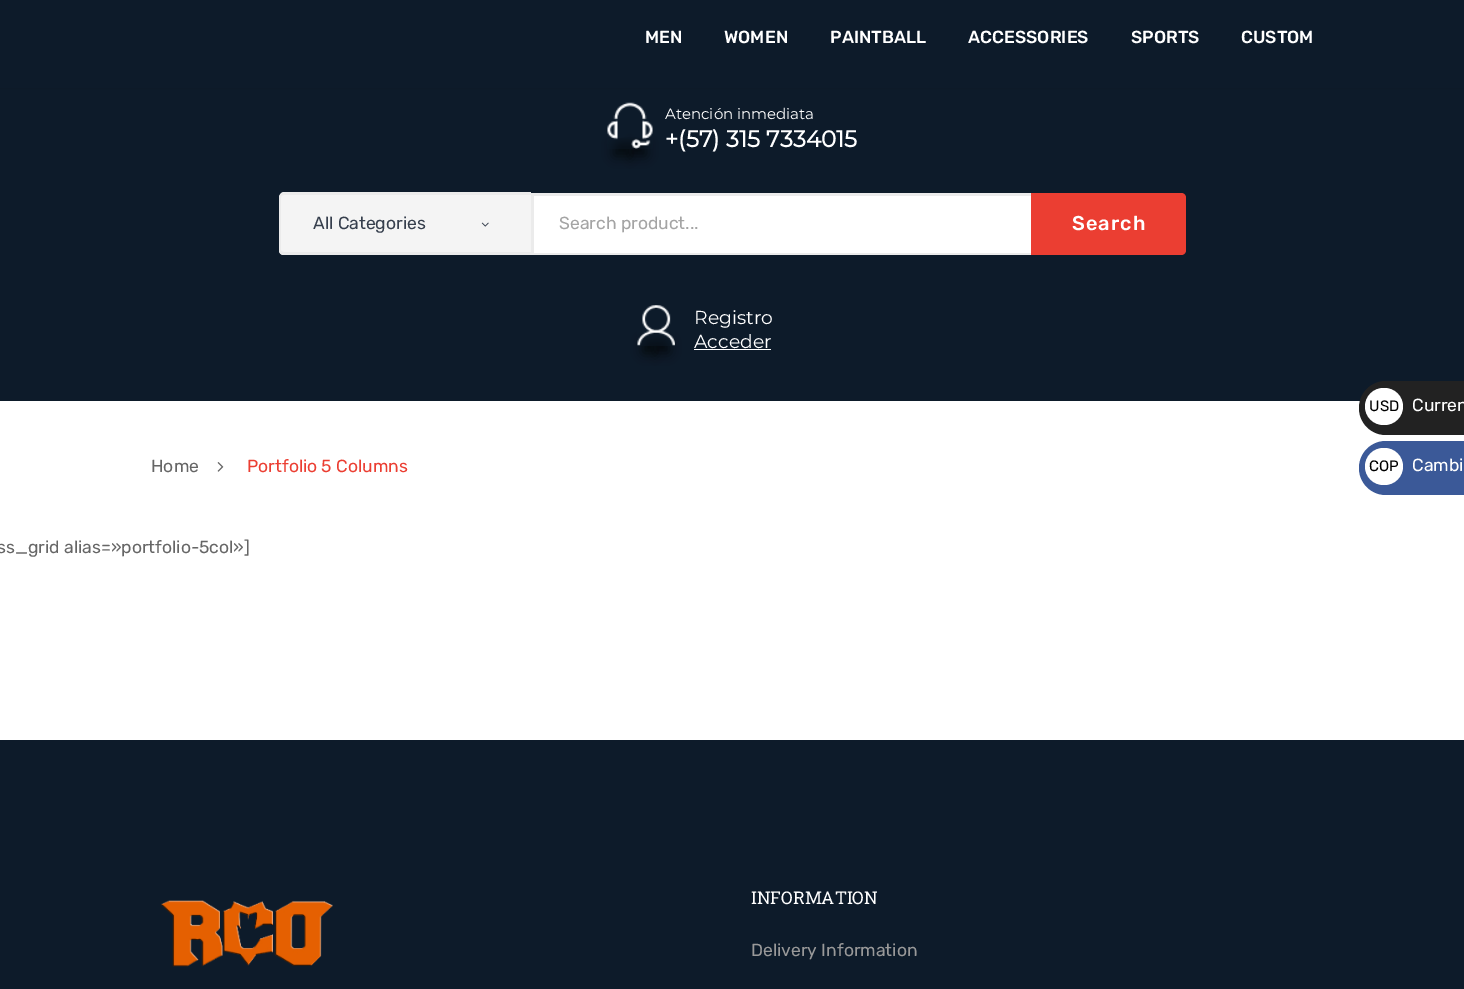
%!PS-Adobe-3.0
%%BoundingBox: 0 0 1464 989
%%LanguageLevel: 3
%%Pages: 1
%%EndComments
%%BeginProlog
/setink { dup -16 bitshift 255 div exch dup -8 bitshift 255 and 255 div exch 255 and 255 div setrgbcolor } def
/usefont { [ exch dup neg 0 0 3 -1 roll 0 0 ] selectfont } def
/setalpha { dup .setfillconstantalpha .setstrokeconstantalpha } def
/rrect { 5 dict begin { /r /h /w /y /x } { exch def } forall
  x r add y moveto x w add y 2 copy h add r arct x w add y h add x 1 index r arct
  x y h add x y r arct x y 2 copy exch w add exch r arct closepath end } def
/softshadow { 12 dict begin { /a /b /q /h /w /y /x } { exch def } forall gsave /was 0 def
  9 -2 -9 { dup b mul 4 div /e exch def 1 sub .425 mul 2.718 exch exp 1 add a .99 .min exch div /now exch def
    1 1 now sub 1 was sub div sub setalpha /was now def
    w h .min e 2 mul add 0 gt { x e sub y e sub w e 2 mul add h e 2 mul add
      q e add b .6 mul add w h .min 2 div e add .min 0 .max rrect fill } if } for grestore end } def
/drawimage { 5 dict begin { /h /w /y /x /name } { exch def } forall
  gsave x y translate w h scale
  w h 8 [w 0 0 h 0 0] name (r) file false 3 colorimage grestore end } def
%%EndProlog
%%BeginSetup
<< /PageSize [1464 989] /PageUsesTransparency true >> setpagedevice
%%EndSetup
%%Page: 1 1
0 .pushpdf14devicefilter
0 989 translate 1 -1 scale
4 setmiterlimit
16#FFFFFF setink
0 0 1464 989 rectfill
16#0D1B2A setink
0 88 1464 313 rectfill
16#000000 setink
0 1 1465 88 0 2 0.11 softshadow
16#0D1B2A setink
0 0 1464 88 rectfill
/Rubik-Medium 17.5 usefont
16#FFFFFF setink
[
    [(MEN) 645 43]
    [(WOMEN) 724 43]
    [(PAINTBALL) 830 43]
    [(ACCESSORIES) 968 43]
    [(SPORTS) 1131 43]
    [(CUSTOM) 1241 43]
] { aload pop moveto show } forall
gsave
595 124 moveto 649 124 lineto 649 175 lineto 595 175 lineto closepath 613.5 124.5 moveto 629.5 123 lineto 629.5 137 lineto 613.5 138.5 lineto closepath eoclip newpath
16#000000 setink
614 143 16 13 0 6 0.6 softshadow
grestore
gsave
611 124 moveto 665 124 lineto 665 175 lineto 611 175 lineto closepath 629.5 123 moveto 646 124.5 lineto 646 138.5 lineto 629.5 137 lineto closepath eoclip newpath
16#000000 setink
630 143 16 13 0 6 0.6 softshadow
grestore
(img1.raw) 607 102 46 47 drawimage
/Montserrat-Thin 15 usefont
665 119 moveto (Atención inmediata) show
/Montserrat-Bold 23 usefont
665 147 moveto (+\(57\) 315 7334015) show
16#F4F4F4 setink
284 193 moveto 531 193 lineto 531 255 lineto 284 255 lineto 281 255 279 253 279 250 curveto 279 198 lineto 279 195 281 193 284 193 curveto closepath fill
16#EBEBEB setink
284 192 moveto 531 192 lineto 531 255 lineto 284 255 lineto 281 255 279 253 279 250 curveto 279 198 lineto 279 195 281 192 284 192 curveto closepath 284 195 moveto 531 195 lineto 531 252 lineto 284 252 lineto 282 252 281 251 281 250 curveto 281 198 lineto 281 196 282 195 284 195 curveto closepath eofill
/Rubik-Regular 17.5 usefont
16#363F4D setink
313 229 moveto (All Categories) show
(img2.raw) 481 222 8 5 drawimage
[
    [534 196 497 57 16#FFFFFF]
    [531 193 500 3 16#EBEBEB]
    [531 253 500 2 16#EBEBEB]
    [531 193 3 62 16#EBEBEB]
] { aload pop setink rectfill } forall
16#A4A4A4 setink
559 229 moveto (Search product...) show
16#EB3E32 setink
1031 193 moveto 1181 193 lineto 1184 193 1186 195 1186 198 curveto 1186 250 lineto 1186 253 1184 255 1181 255 curveto 1031 255 lineto closepath fill
/Rubik-Medium 20 usefont
16#FFFFFF setink
1072 230 moveto 1 0 (Search) ashow
gsave
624 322 moveto 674 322 lineto 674 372 lineto 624 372 lineto closepath 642.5 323 moveto 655.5 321.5 lineto 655.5 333.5 lineto 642.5 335 lineto closepath eoclip newpath
16#000000 setink
643 341 12 12 0 6 0.6 softshadow
grestore
gsave
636 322 moveto 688 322 lineto 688 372 lineto 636 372 lineto closepath 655.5 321.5 moveto 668.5 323 lineto 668.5 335 lineto 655.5 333.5 lineto closepath eoclip newpath
16#000000 setink
655 341 14 12 0 6 0.6 softshadow
grestore
(img3.raw) 637 305 38 41 drawimage
/Montserrat-Thin 18.75 usefont
694 324 moveto (Registro) show
694 348 moveto (Acceder) show
694 349 77 1 rectfill
/Rubik-Regular 17.5 usefont
16#666666 setink
151 472 moveto (Home) show
(img4.raw) 217 462 7 10 drawimage
16#EB3E32 setink
247 472 moveto (Portfolio 5 Columns) show
16#666666 setink
-3 553 moveto (ss_grid alias=»portfolio-5col»]) show
16#0D1B2A setink
0 740 1464 249 rectfill
(img5.raw) 161 900 172 67 drawimage
/RobotoSlab-Regular 17.5 usefont
16#FFFFFF setink
751 904 moveto (INFORMATION) show
/Rubik-Regular 17.5 usefont
16#999999 setink
751 956 moveto (Delivery Information) show
16#222222 setink
1386 381 moveto 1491 381 lineto 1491 435 lineto 1386 435 lineto 1371 435 1359 423 1359 408 curveto 1359 393 1371 381 1386 381 curveto closepath fill
16#FFFFFF setink
1365 388 38 37 18.5 rrect fill
/Rubik-Regular 15 usefont
16#000000 setink
1369 411 moveto (USD) show
/Rubik-Regular 17.5 usefont
16#FFFFFF setink
1412 411 moveto (Curren) show
16#3B5998 setink
1386 441 moveto 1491 441 lineto 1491 495 lineto 1386 495 lineto 1371 495 1359 483 1359 468 curveto 1359 453 1371 441 1386 441 curveto closepath fill
16#FFFFFF setink
1365 448 38 37 18.5 rrect fill
/Rubik-Regular 15 usefont
16#000000 setink
1369 471 moveto (COP) show
/Rubik-Regular 17.5 usefont
16#FFFFFF setink
1412 471 moveto (Cambi) show
.poppdf14devicefilter showpage
%%EOF
